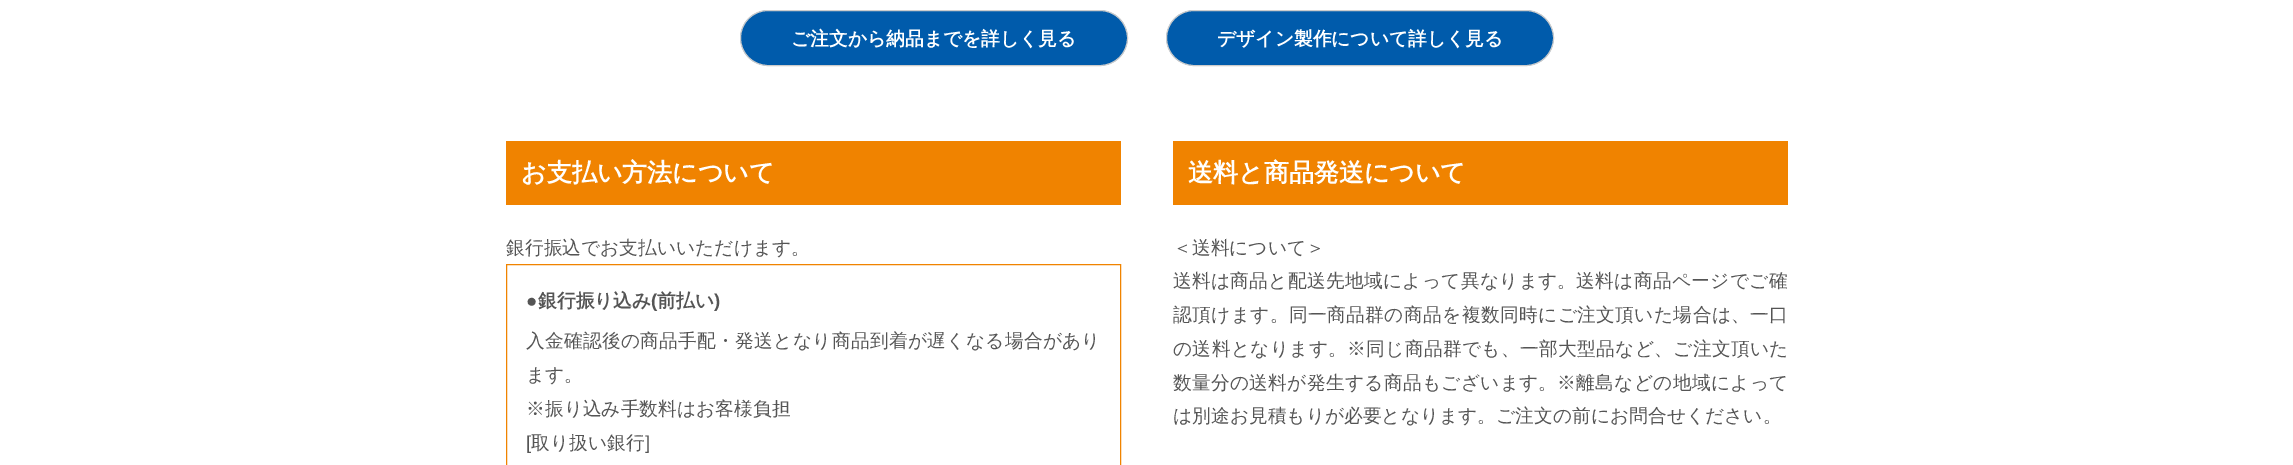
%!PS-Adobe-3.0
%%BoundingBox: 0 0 2293 465
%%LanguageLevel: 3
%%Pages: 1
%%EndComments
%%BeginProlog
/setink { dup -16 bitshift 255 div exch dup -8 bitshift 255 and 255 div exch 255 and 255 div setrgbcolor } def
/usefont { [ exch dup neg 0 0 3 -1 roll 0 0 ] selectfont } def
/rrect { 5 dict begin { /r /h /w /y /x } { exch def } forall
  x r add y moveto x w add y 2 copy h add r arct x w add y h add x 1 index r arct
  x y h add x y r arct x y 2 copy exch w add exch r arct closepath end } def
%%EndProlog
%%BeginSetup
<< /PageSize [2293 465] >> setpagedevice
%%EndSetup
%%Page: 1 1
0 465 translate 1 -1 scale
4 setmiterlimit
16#FFFFFF setink
0 0 2293 465 rectfill
16#005BAB setink
740.5 10.5 387 55 27.5 rrect gsave fill grestore
16#CCCCCC setink
stroke
/WenQuanYiZenHei-Bold 18.75 usefont
16#FFFFFF setink
791 45 moveto (ご注文から納品までを詳しく見る) show
16#005BAB setink
1166.5 10.5 387 55 27.5 rrect gsave fill grestore
16#CCCCCC setink
stroke
16#FFFFFF setink
1217 45 moveto (デザイン製作について詳しく見る) show
16#F08300 setink
506 141 615 64 rectfill
/WenQuanYiZenHei-Bold 25 usefont
16#FFFFFF setink
521 181 moveto (お支払い方法について) show
/WenQuanYiZenHei-Medium 18.75 usefont
16#555555 setink
506 254 moveto (銀行振込でお支払いいただけます。) show
16#F08300 setink
506.5 264.5 614 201 rectstroke
/LiberationSans-Bold 18.75 usefont
16#555555 setink
526 307 moveto (●) show
/WenQuanYiZenHei-Bold 18.75 usefont
538 307 moveto (銀行振り込み) show
/LiberationSans-Bold 18.75 usefont
651 307 moveto (\() show
/WenQuanYiZenHei-Bold 18.75 usefont
657 307 moveto (前払い) show
/LiberationSans-Bold 18.75 usefont
714 307 moveto (\)) show
/WenQuanYiZenHei-Medium 18.75 usefont
526 347 moveto 0.25 0 (入金確認後の商品手配・発送となり商品到着が遅くなる場合があり) ashow
526 381 moveto (ます。) show
526 415 moveto (※振り込み手数料はお客様負担) show
/LiberationSans-Regular 18.75 usefont
526 449 moveto ([) show
/WenQuanYiZenHei-Medium 18.75 usefont
531 449 moveto (取り扱い銀行) show
/LiberationSans-Regular 18.75 usefont
645 449 moveto (]) show
16#F08300 setink
1173 141 615 64 rectfill
/WenQuanYiZenHei-Bold 25 usefont
16#FFFFFF setink
1188 181 moveto (送料と商品発送について) show
/WenQuanYiZenHei-Medium 18.75 usefont
16#555555 setink
1173 254 moveto (＜送料について＞) show
1173 287 moveto 0.25 0 (送料は商品と配送先地域によって異なります。送料は商品ページでご確) ashow
1173 321 moveto 0.35 0 (認頂けます。同一商品群の商品を複数同時にご注文頂いた場合は、一口) ashow
1173 355 moveto 0.3 0 (の送料となります。※同じ商品群でも、一部大型品など、ご注文頂いた) ashow
1173 389 moveto 0.25 0 (数量分の送料が発生する商品もございます。※離島などの地域によって) ashow
1173 422 moveto (は別途お見積もりが必要となります。ご注文の前にお問合せください。) show
showpage
%%EOF
